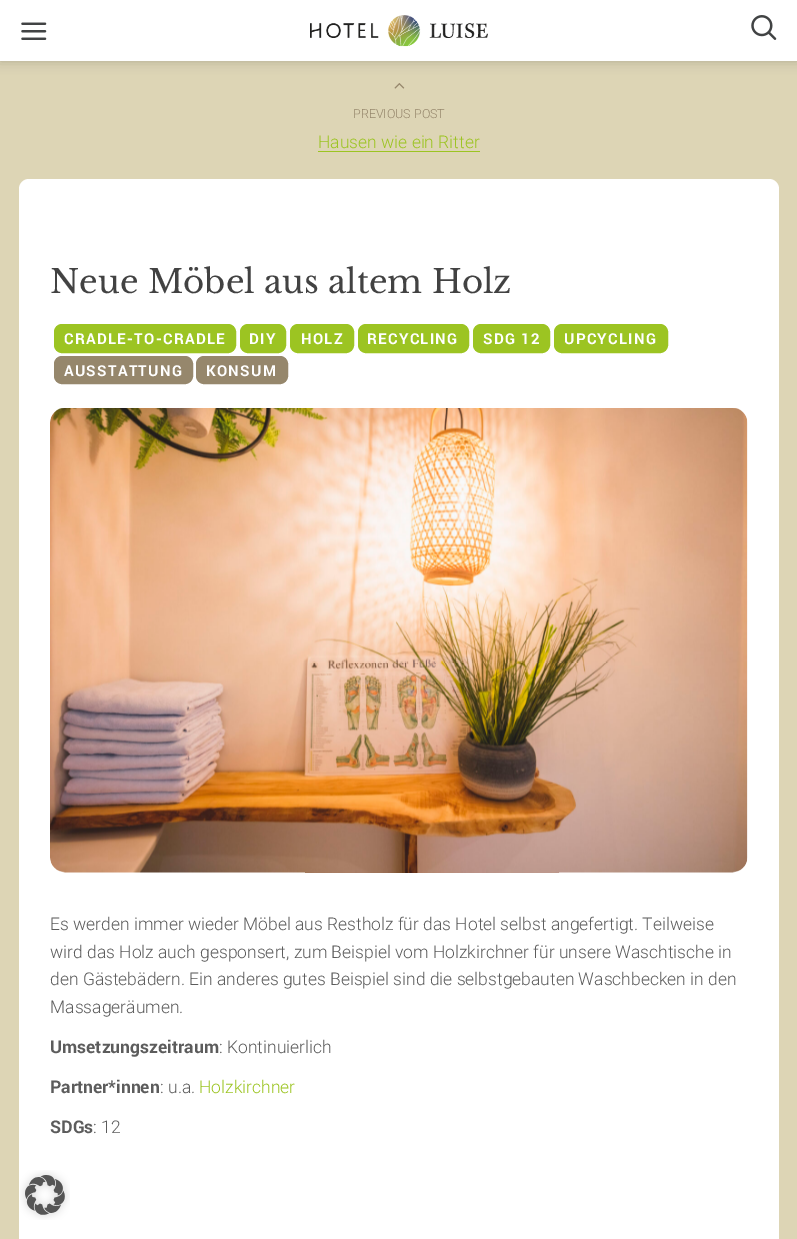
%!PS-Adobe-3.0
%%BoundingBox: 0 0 797 1239
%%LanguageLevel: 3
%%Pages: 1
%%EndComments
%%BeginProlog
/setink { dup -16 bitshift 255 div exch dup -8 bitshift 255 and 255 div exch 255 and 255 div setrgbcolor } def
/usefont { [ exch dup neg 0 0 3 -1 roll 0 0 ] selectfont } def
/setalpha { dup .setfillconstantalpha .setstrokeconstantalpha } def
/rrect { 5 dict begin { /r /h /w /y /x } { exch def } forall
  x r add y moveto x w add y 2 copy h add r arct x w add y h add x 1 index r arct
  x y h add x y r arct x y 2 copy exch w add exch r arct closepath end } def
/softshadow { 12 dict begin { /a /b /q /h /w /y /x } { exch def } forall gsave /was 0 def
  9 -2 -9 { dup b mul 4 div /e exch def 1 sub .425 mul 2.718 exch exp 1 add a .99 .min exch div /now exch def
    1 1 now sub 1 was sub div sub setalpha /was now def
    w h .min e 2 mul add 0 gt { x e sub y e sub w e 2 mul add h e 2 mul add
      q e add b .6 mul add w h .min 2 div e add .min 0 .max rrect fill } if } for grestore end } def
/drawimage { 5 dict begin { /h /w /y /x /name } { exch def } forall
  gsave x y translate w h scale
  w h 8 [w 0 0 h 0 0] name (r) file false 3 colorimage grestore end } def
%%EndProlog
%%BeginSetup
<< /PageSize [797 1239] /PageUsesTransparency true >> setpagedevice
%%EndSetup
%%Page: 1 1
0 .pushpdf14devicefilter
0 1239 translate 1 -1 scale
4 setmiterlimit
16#DDD5B5 setink
0 0 797 1239 rectfill
16#000000 setink
0 0 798 61 0 6 0.2 softshadow
16#FFFFFF setink
0 0 797 61 rectfill
(img1.raw) 21 22 26 18 drawimage
(img2.raw) 310 15 178 32 drawimage
(img3.raw) 751 15 26 25 drawimage
(img4.raw) 394 83 11 6 drawimage
/Roboto-Light 12.5 usefont
16#96876C setink
353 118 moveto (PREVIOUS POST) show
/Roboto-Light 17.5 usefont
16#9CC422 setink
318 148 moveto (Hausen wie ein Ritter) show
318 151 162 1 rectfill
16#FFFFFF setink
19 179 760 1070 10 rrect fill
/LibreBaskerville-Regular 32.5 usefont
16#424242 setink
50 293 moveto (Neue Möbel aus altem Holz) show
16#9CC422 setink
54.5 324.5 181 28 7.5 rrect gsave fill grestore
stroke
/Roboto-Bold 15 usefont
16#FFFFFF setink
64 344 moveto 1.25 0 (CRADLE-TO-CRADLE) ashow
16#9CC422 setink
240.5 324.5 45 28 7.5 rrect gsave fill grestore
stroke
16#FFFFFF setink
249 344 moveto 1.25 0 (DIY) ashow
16#9CC422 setink
290.5 324.5 63 28 7.5 rrect gsave fill grestore
stroke
16#FFFFFF setink
301 344 moveto 1.25 0 (HOLZ) ashow
16#9CC422 setink
358.5 324.5 110 28 7.5 rrect gsave fill grestore
stroke
16#FFFFFF setink
367 344 moveto 1.25 0 (RECYCLING) ashow
16#9CC422 setink
473.5 324.5 76 28 7.5 rrect gsave fill grestore
stroke
16#FFFFFF setink
483 344 moveto 1.25 0 (SDG 12) ashow
16#9CC422 setink
554.5 324.5 113 28 7.5 rrect gsave fill grestore
stroke
16#FFFFFF setink
564 344 moveto 1.25 0 (UPCYCLING) ashow
16#96876C setink
54.5 356.5 138 27 7.5 rrect gsave fill grestore
stroke
16#FFFFFF setink
64 376 moveto 1.25 0 (AUSSTATTUNG) ashow
16#96876C setink
196.5 356.5 91 27 7.5 rrect gsave fill grestore
stroke
16#FFFFFF setink
206 376 moveto 1.25 0 (KONSUM) ashow
(img5.raw) 50 408 698 465 drawimage
/Roboto-Light 17.5 usefont
16#5C5C5C setink
[
    [(Es werden immer wieder Möbel aus Restholz für das Hotel selbst angefertigt. Teilweise) 50 930]
    [(wird das Holz auch gesponsert, zum Beispiel vom Holzkirchner für unsere Waschtische in) 50 958]
    [(den Gästebädern. Ein anderes gutes Beispiel sind die selbstgebauten Waschbecken in den) 50 985]
    [(Massageräumen.) 50 1013]
] { aload pop moveto show } forall
/Roboto-Bold 17.5 usefont
50 1053 moveto (Umsetzungszeitraum) show
/Roboto-Light 17.5 usefont
219 1053 moveto (: Kontinuierlich) show
/Roboto-Bold 17.5 usefont
50 1093 moveto (Partner*innen) show
/Roboto-Light 17.5 usefont
160 1093 moveto (: u.a.) show
16#9CC422 setink
199 1093 moveto (Holzkirchner) show
/Roboto-Bold 17.5 usefont
16#5C5C5C setink
50 1133 moveto (SDGs) show
/Roboto-Light 17.5 usefont
93 1133 moveto (: 12) show
(img6.raw) 20 1170 50 50 drawimage
.poppdf14devicefilter showpage
%%EOF
